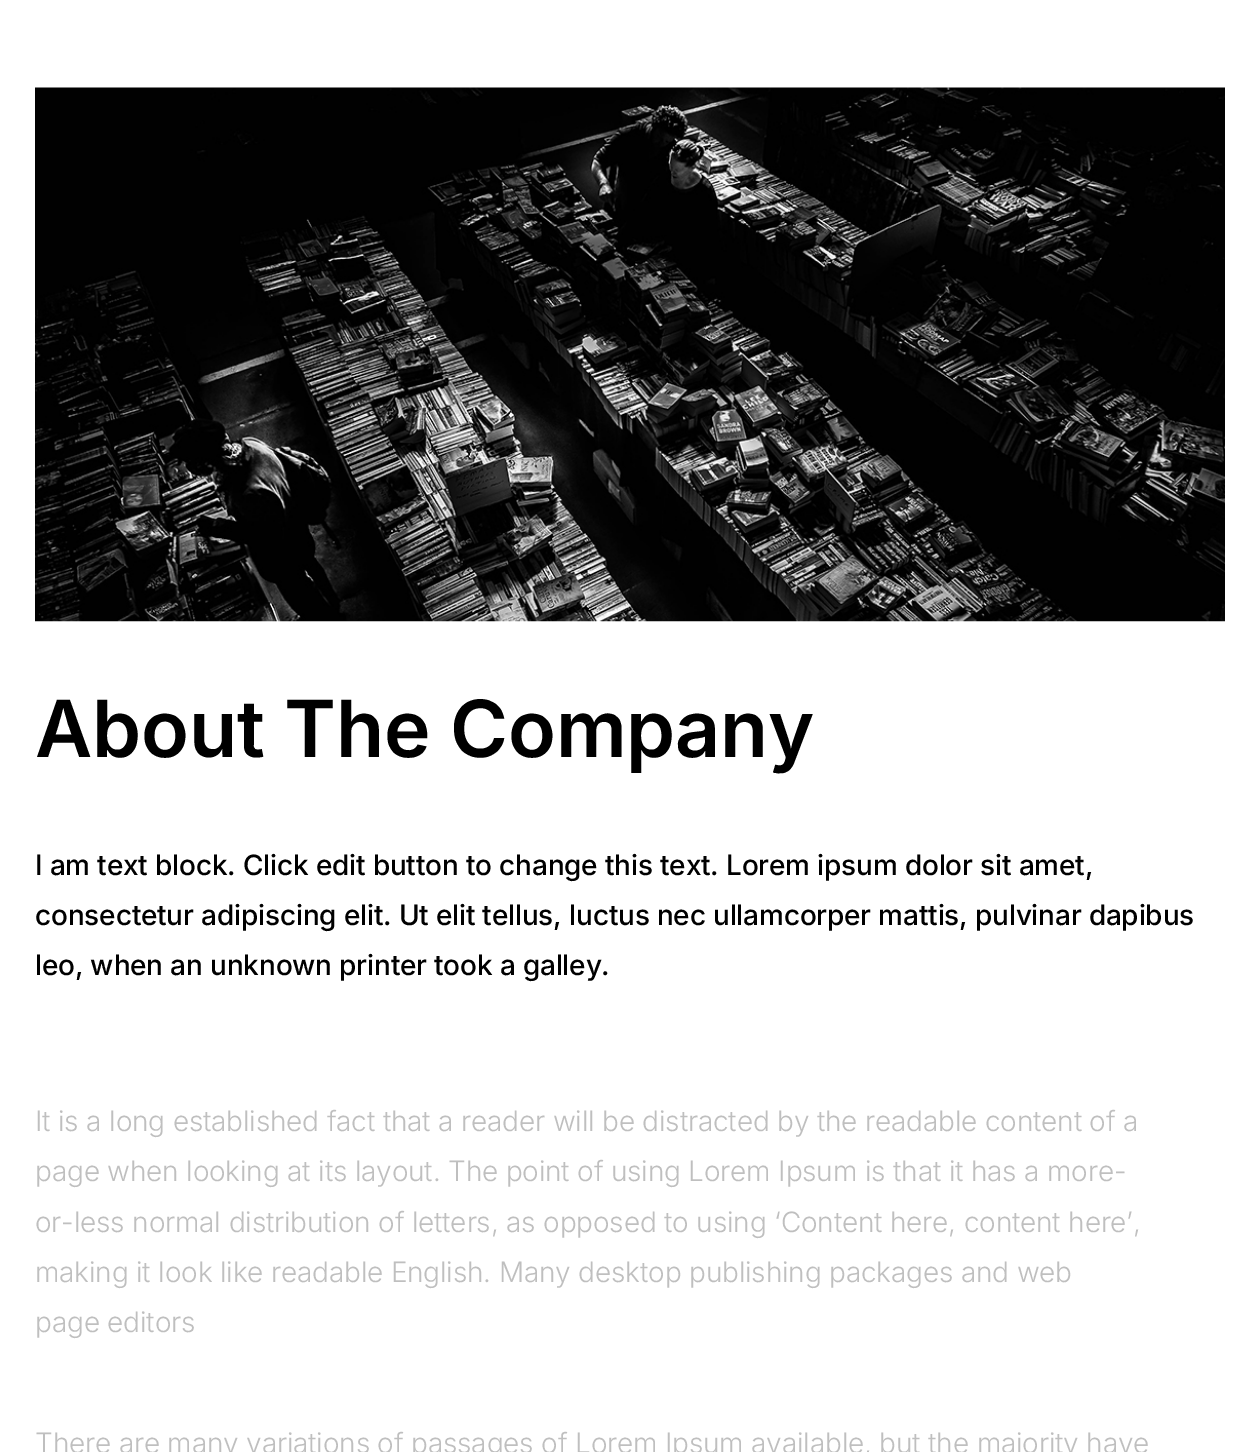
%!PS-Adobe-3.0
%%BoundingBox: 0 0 1260 1452
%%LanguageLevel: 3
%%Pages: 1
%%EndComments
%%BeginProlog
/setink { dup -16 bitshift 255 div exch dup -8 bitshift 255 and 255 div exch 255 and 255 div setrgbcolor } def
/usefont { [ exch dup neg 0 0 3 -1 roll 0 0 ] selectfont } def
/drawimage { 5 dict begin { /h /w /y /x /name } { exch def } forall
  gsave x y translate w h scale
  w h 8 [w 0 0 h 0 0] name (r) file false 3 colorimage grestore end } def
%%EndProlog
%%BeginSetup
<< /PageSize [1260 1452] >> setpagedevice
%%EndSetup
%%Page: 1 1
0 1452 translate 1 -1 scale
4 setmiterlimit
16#FFFFFF setink
0 0 1260 1452 rectfill
(img1.raw) 35 87 1190 535 drawimage
/Inter-SemiBold 78.75 usefont
16#000000 setink
35 757 moveto -0.18 0 (About The Company) ashow
/Inter-Medium 28 usefont
35 875 moveto -0.18 0 (I am text block. Click edit button to change this text. Lorem ipsum dolor sit amet,) ashow
35 925 moveto -0.18 0 (consectetur adipiscing elit. Ut elit tellus, luctus nec ullamcorper mattis, pulvinar dapibus) ashow
35 975 moveto -0.18 0 (leo, when an unknown printer took a galley.) ashow
/Inter-Light 28 usefont
16#BFBFBF setink
35 1131 moveto -0.18 0 (It is a long established fact that a reader will be distracted by the readable content of a) ashow
35 1181 moveto -0.18 0 (page when looking at its layout. The point of using Lorem Ipsum is that it has a more-) ashow
35 1232 moveto -0.18 0 (or-less normal distribution of letters, as opposed to using ‘Content here, content here’,) ashow
35 1282 moveto -0.18 0 (making it look like readable English. Many desktop publishing packages and web) ashow
35 1332 moveto -0.18 0 (page editors) ashow
35 1453 moveto -0.18 0 (There are many variations of passages of Lorem Ipsum available, but the majority have) ashow
showpage
%%EOF
